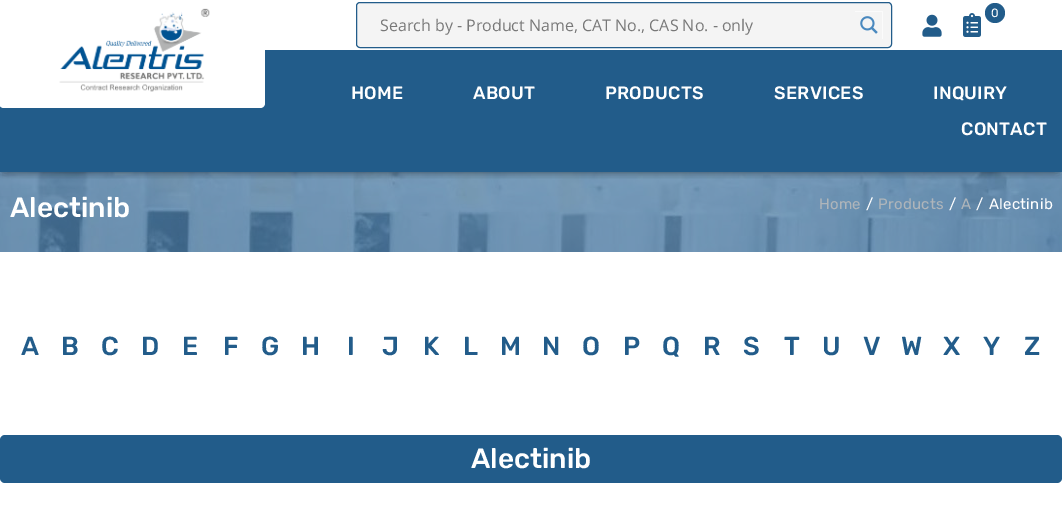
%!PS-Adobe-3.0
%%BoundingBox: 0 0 1062 521
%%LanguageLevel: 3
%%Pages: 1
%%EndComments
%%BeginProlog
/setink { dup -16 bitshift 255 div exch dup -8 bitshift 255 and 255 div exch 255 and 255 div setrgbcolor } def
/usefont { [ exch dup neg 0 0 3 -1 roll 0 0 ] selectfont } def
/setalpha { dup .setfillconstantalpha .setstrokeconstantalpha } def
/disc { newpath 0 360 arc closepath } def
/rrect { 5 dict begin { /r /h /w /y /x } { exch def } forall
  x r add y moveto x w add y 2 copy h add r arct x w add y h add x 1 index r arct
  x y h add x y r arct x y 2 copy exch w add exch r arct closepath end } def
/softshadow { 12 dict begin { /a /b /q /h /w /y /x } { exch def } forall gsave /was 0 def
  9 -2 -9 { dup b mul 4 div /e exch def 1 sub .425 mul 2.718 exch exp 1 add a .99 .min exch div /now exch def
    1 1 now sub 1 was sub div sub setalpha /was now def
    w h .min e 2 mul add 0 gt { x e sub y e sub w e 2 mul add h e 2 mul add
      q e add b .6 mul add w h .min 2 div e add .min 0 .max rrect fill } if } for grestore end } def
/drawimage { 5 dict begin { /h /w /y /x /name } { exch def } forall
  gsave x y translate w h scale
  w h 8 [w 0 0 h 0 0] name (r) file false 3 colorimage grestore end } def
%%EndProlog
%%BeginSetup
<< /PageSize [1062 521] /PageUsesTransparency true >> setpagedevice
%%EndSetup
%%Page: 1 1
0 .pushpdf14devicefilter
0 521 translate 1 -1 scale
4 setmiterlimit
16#FFFFFF setink
0 0 1062 521 rectfill
(img5.raw) 0 172 1062 80 drawimage
gsave
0 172 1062 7 rectclip
16#000000 setink
2 2 1058 168 0 5 0.5 softshadow
grestore
gsave
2 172 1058 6 rectclip
16#000000 setink
7 11 1048 158 0 5 0.5 softshadow
grestore
(img1.raw) 963 13 18 24 drawimage
16#225C8A setink
995 13 10 disc fill
/Rubik-Regular 12 usefont
16#FFFFFF setink
991 17 moveto 0.25 0 (0) ashow
(img2.raw) 922 14 20 23 drawimage
16#F4F4F4 setink
356.5 2.5 535 45 3.5 rrect gsave fill grestore
16#225C8A setink
stroke
/OpenSans-Regular 16 usefont
16#787878 setink
380 31 moveto (Search by - Product Name, CAT No., CAS No. - only) show
gsave
855 11 28 28 rectclip
16#FBFBFB setink
756 47 moveto 869 47 lineto 881 47 891 37 891 25 curveto 891 13 881 3 869 3 curveto 756 3 lineto closepath 854 12 moveto 882 12 lineto 882 40 lineto 854 40 lineto closepath eofill
grestore
(img3.raw) 860 16 18 18 drawimage
16#225C8A setink
0 50 1062 122 rectfill
16#FFFFFF setink
-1 1 moveto 265 1 lineto 265 103 lineto 265 106 263 108 260 108 curveto 4 108 lineto 1 108 -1 106 -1 103 curveto closepath fill
(img4.raw) 59 8 151 84 drawimage
/Rubik-Medium 18 usefont
351 99 moveto 0.25 0 (HOME) ashow
473 99 moveto 0.25 0 (ABOUT) ashow
605 99 moveto 0.25 0 (PRODUCTS) ashow
774 99 moveto 0.25 0 (SERVICES) ashow
933 99 moveto 0.25 0 (INQUIRY) ashow
961 135 moveto 0.25 0 (CONTACT) ashow
/Rubik-Medium 28 usefont
10 217 moveto (Alectinib) show
/Rubik-Regular 15 usefont
16#AFB5BA setink
819 209 moveto 0.25 0 (Home) ashow
16#FFFFFF setink
866 209 moveto 0.25 0 (/) ashow
16#AFB5BA setink
878 209 moveto 0.25 0 (Products) ashow
16#FFFFFF setink
949 209 moveto 0.25 0 (/) ashow
16#AFB5BA setink
961 209 moveto 0.25 0 (A) ashow
16#FFFFFF setink
976 209 moveto 0.25 0 (/) ashow
989 209 moveto 0.25 0 (Alectinib) ashow
/Rubik-Medium 26 usefont
16#225C8A setink
[
    [(A) 21 355]
    [(B) 61 355]
    [(C) 101 355]
    [(D) 141 355]
    [(E) 182 355]
    [(F) 223 355]
    [(G) 261 355]
    [(H) 301 355]
    [(I) 347 355]
    [(J) 382 355]
    [(K) 423 355]
    [(L) 463 355]
    [(M) 500 355]
    [(N) 542 355]
    [(O) 582 355]
    [(P) 623 355]
    [(Q) 662 355]
    [(R) 703 355]
    [(S) 743 355]
    [(T) 784 355]
    [(U) 822 355]
    [(V) 863 355]
    [(W) 901 355]
    [(X) 943 355]
    [(Y) 983 355]
    [(Z) 1024 355]
] { aload pop moveto show } forall
0 435 1062 48 5 rrect fill
/Rubik-Medium 28 usefont
16#FFFFFF setink
471 468 moveto (Alectinib) show
.poppdf14devicefilter showpage
%%EOF
